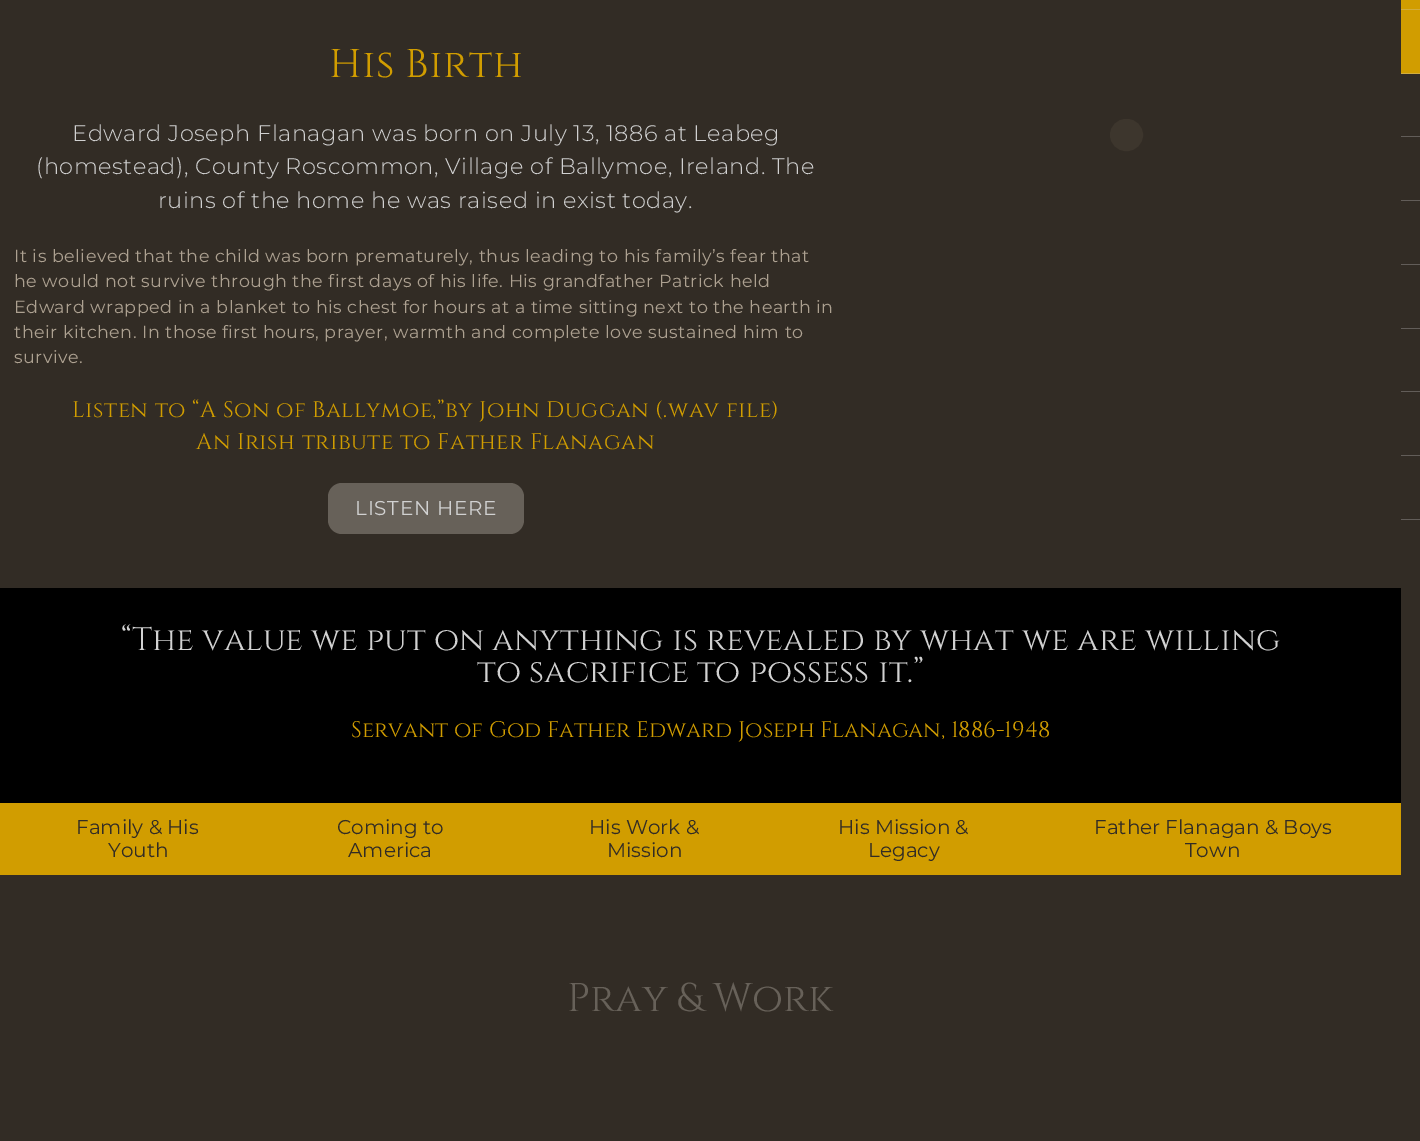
%!PS-Adobe-3.0
%%BoundingBox: 0 0 1420 1141
%%LanguageLevel: 3
%%Pages: 1
%%EndComments
%%BeginProlog
/setink { dup -16 bitshift 255 div exch dup -8 bitshift 255 and 255 div exch 255 and 255 div setrgbcolor } def
/usefont { [ exch dup neg 0 0 3 -1 roll 0 0 ] selectfont } def
/rrect { 5 dict begin { /r /h /w /y /x } { exch def } forall
  x r add y moveto x w add y 2 copy h add r arct x w add y h add x 1 index r arct
  x y h add x y r arct x y 2 copy exch w add exch r arct closepath end } def
%%EndProlog
%%BeginSetup
<< /PageSize [1420 1141] >> setpagedevice
%%EndSetup
%%Page: 1 1
0 1141 translate 1 -1 scale
4 setmiterlimit
16#322C25 setink
0 0 1420 1141 rectfill
/Cinzel-Regular 40 usefont
16#D19D00 setink
329 77 moveto 0.5 0 (His Birth) ashow
/Montserrat-Light 22.5 usefont
16#D1D1D1 setink
72 141 moveto 0.5 0 (Edward Joseph Flanagan was born on July 13, 1886 at Leabeg) ashow
36 174 moveto 0.5 0 (\(homestead\), County Roscommon, Village of Ballymoe, Ireland. The) ashow
158 208 moveto 0.5 0 (ruins of the home he was raised in exist today.) ashow
/Montserrat-Regular 17.5 usefont
16#ADA191 setink
14 262 moveto 0.5 0 (It is believed that the child was born prematurely, thus leading to his family’s fear that) ashow
14 287 moveto 0.5 0 (he would not survive through the first days of his life. His grandfather Patrick held) ashow
14 313 moveto 0.5 0 (Edward wrapped in a blanket to his chest for hours at a time sitting next to the hearth in) ashow
14 338 moveto 0.5 0 (their kitchen. In those first hours, prayer, warmth and complete love sustained him to) ashow
14 363 moveto 0.5 0 (survive.) ashow
/Cinzel-Regular 22.5 usefont
16#D19D00 setink
72 417 moveto 0.5 0 (Listen to “A Son of Ballymoe,”by John Duggan \(.wav file\)) ashow
196 449 moveto 0.5 0 (An Irish tribute to Father Flanagan) ashow
16#676159 setink
328 483 196 51 14 rrect fill
/Montserrat-Regular 20 usefont
16#D1D1D1 setink
355 515 moveto 0.75 0 (LISTEN HERE) ashow
16#000000 setink
0 588 1401 215 rectfill
/Cinzel-Regular 32.5 usefont
16#D1D1D1 setink
121 650 moveto (“The value we put on anything is revealed by what we are willing) show
477 682 moveto (to sacrifice to possess it.”) show
/Cinzel-Regular 22.5 usefont
16#D19D00 setink
351 737 moveto (Servant of God Father Edward Joseph Flanagan, 1886-1948) show
0 803 1401 72 rectfill
/Montserrat-Regular 20 usefont
16#322C25 setink
[
    [(Family & His) 76 834]
    [(Youth) 108 857]
    [(Coming to) 337 834]
    [(America) 348 857]
    [(His Work &) 589 834]
    [(Mission) 607 857]
    [(His Mission &) 838 834]
    [(Legacy) 868 857]
    [(Father Flanagan & Boys) 1094 834]
    [(Town) 1185 857]
] { aload pop moveto show } forall
/Cinzel-Regular 40 usefont
16#676159 setink
567 1011 moveto (Pray & Work) show
[
    [1401 0 19 9 16#D19D00]
    [1401 9 19 1 16#D1AD3F]
    [1401 10 19 63 16#D19D00]
    [1401 73 19 1 16#D1AD3F]
    [1401 136 19 1 16#625D59]
    [1401 200 19 1 16#625D59]
    [1401 264 19 1 16#625D59]
    [1401 328 19 1 16#625D59]
    [1401 391 19 1 16#625D59]
    [1401 455 19 1 16#625D59]
    [1401 519 19 1 16#625D59]
] { aload pop setink rectfill } forall
16#3D362D setink
1111.5 120.5 30 29 14.5 rrect gsave fill grestore
3 setlinewidth
stroke
showpage
%%EOF
